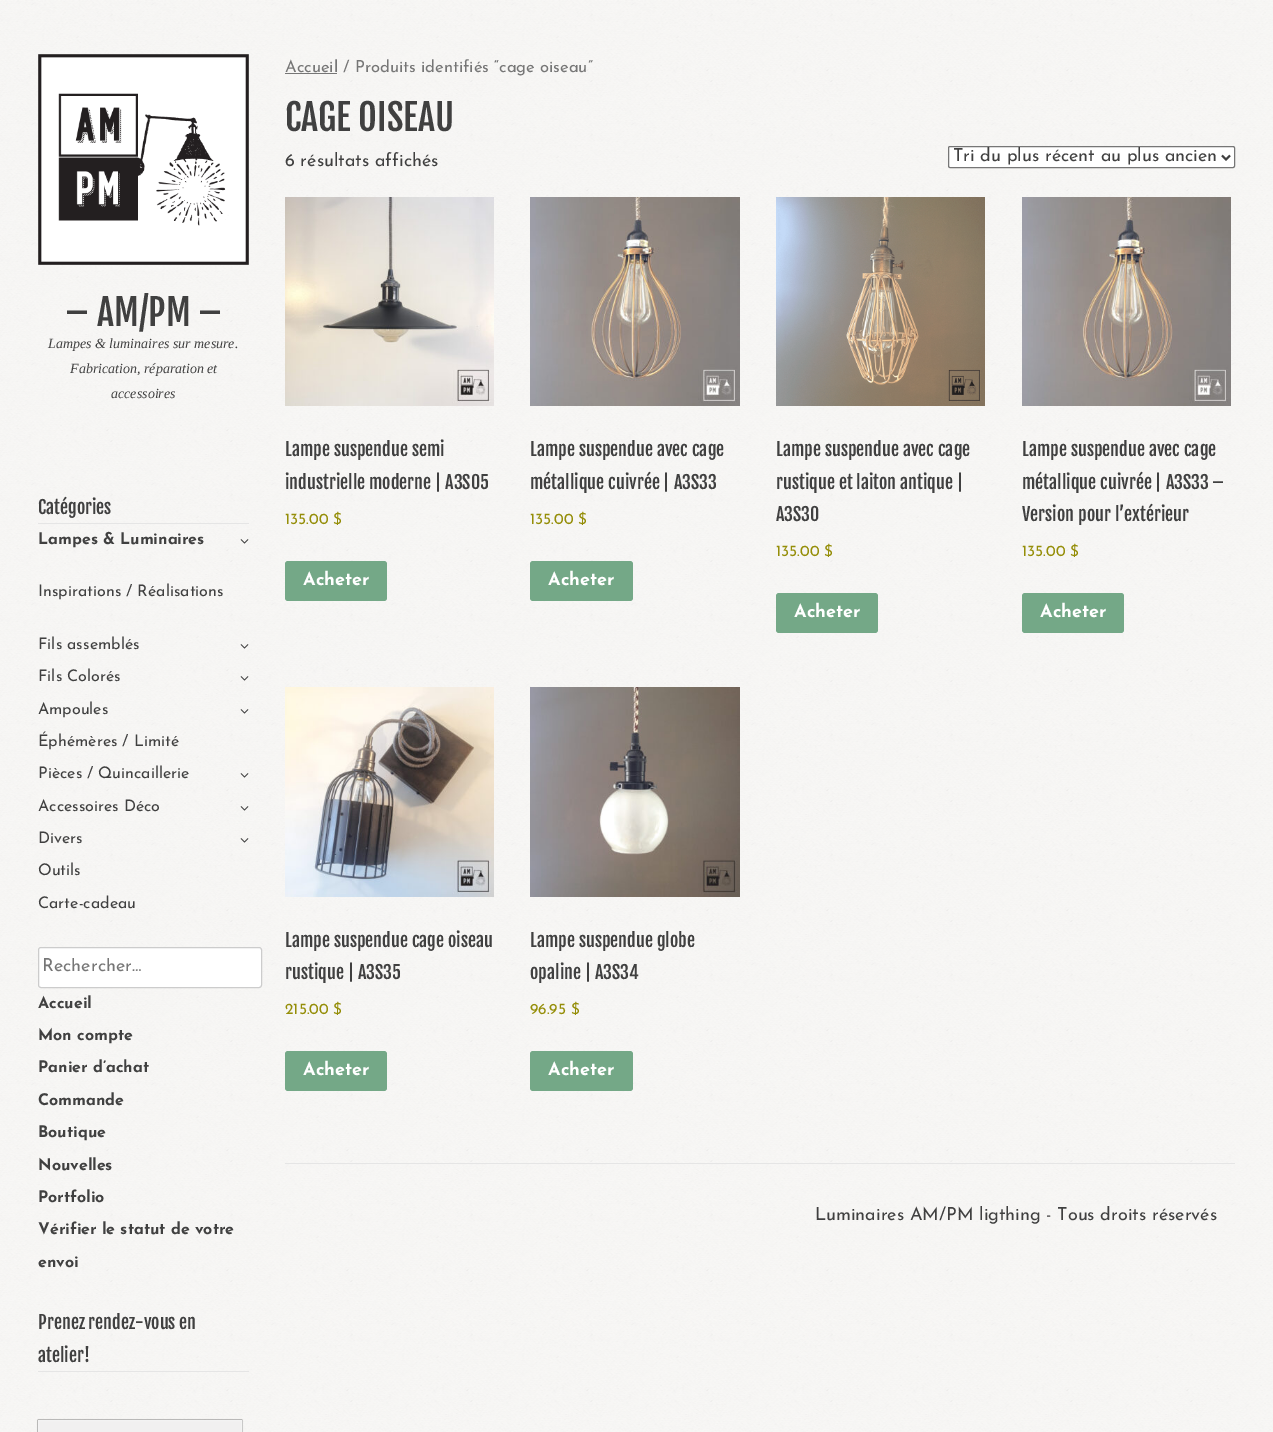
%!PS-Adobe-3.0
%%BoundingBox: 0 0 1273 1432
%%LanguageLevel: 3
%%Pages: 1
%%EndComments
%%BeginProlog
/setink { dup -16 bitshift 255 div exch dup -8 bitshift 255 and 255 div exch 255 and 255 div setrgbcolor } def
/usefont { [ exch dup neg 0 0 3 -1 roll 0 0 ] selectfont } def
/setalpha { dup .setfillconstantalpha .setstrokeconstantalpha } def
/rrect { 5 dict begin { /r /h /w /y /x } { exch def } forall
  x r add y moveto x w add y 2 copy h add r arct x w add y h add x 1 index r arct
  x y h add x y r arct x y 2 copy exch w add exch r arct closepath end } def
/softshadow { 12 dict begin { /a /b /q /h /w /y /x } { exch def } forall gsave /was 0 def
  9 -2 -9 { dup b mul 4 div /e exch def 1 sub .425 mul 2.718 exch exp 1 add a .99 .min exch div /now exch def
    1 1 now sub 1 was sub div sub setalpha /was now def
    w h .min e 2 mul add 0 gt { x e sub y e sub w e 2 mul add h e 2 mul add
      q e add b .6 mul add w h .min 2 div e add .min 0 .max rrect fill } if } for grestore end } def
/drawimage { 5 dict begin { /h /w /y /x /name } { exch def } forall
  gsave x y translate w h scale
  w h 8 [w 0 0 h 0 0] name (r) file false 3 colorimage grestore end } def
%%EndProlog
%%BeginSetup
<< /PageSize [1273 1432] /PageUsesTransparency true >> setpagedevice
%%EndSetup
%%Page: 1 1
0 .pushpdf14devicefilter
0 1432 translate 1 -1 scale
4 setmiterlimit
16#FFFFFF setink
0 0 1273 1432 rectfill
(img1.raw) 0 0 1273 1432 drawimage
(img2.raw) 38 54 211 211 drawimage
/FjallaOne-Regular 36 usefont
16#404040 setink
65 326 moveto (– AM/PM –) show
/LiberationSerif-Italic 14 usefont
[
    [(Lampes & luminaires sur mesure.) 48 348]
    [(Fabrication, réparation et) 70 373]
    [(accessoires) 111 398]
] { aload pop moveto show } forall
16#E5E5E5 setink
38 523 211 1 rectfill
/FjallaOne-Regular 18 usefont
16#404040 setink
38 514 moveto (Catégories) show
/JosefinSans-Bold 16 usefont
38 544 moveto (Lampes & Luminaires) show
(img3.raw) 240 539 9 5 drawimage
/JosefinSans-Regular 16 usefont
38 596 moveto (Inspirations / Réalisations) show
38 649 moveto (Fils assemblés) show
(img4.raw) 240 644 9 5 drawimage
38 681 moveto (Fils Colorés) show
(img5.raw) 240 676 9 5 drawimage
38 714 moveto (Ampoules) show
(img6.raw) 240 709 9 5 drawimage
38 746 moveto (Éphémères / Limité) show
38 778 moveto (Pièces / Quincaillerie) show
(img7.raw) 240 773 9 5 drawimage
38 811 moveto (Accessoires Déco) show
(img8.raw) 240 806 9 5 drawimage
38 843 moveto (Divers) show
(img9.raw) 240 838 9 5 drawimage
38 875 moveto (Outils) show
38 908 moveto (Carte-cadeau) show
16#FFFFFF setink
38.5 947.5 223 40 2.5 rrect gsave fill grestore
16#CCCCCC setink
stroke
gsave
42 958 200 18 rectclip
/JosefinSans-Regular 18 usefont
16#767676 setink
42 971 moveto (Rechercher…) show
grestore
/JosefinSans-Bold 16 usefont
16#404040 setink
[
    [(Accueil) 38 1008]
    [(Mon compte) 38 1040]
    [(Panier d’achat) 38 1072]
    [(Commande) 38 1105]
    [(Boutique) 38 1137]
    [(Nouvelles) 38 1170]
    [(Portfolio) 38 1202]
    [(Vérifier le statut de votre) 38 1234]
    [(envoi) 38 1267]
] { aload pop moveto show } forall
16#E5E5E5 setink
38 1371 211 1 rectfill
/FjallaOne-Regular 18 usefont
16#404040 setink
38 1329 moveto (Prenez rendez-vous en) show
38 1362 moveto (atelier!) show
16#101010 setink
38 1420 204 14 0 0.5 1 softshadow
16#F1F0F0 setink
38.5 1420.5 moveto 241.5 1420.5 lineto 241.5 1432.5 lineto 38.5 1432.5 lineto closepath gsave fill grestore
16#F3F3F3 setink
stroke
16#767676 setink
285 73 52 1 rectfill
/JosefinSans-Regular 16.6 usefont
285 72 moveto (Accueil / Produits identifiés “cage oiseau”) show
/FjallaOne-Regular 36 usefont
16#404040 setink
285 131 moveto (CAGE OISEAU) show
/JosefinSans-Regular 18 usefont
285 166 moveto (6 résultats affichés) show
16#FFFFFF setink
948.5 146.5 286 21 1.5 rrect gsave fill grestore
16#767676 setink
stroke
16#404040 setink
2 setlinewidth
1222 155.5 moveto 1226 159.5 lineto 1230 155.5 lineto stroke
953 161 moveto (Tri du plus récent au plus ancien) show
(img10.raw) 285 197 209 209 drawimage
/FjallaOne-Regular 18 usefont
285 456 moveto (Lampe suspendue semi) show
285 489 moveto (industrielle moderne | A3S05) show
/JosefinSans-Regular 15.5 usefont
16#958E09 setink
285 524 moveto (135.00 $) show
16#74A887 setink
285 561 102 40 3 rrect fill
/JosefinSans-Bold 18 usefont
16#FFFFFF setink
303 585 moveto (Acheter) show
(img11.raw) 530 197 210 209 drawimage
/FjallaOne-Regular 18 usefont
16#404040 setink
530 456 moveto (Lampe suspendue avec cage) show
530 489 moveto (métallique cuivrée | A3S33) show
/JosefinSans-Regular 15.5 usefont
16#958E09 setink
530 524 moveto (135.00 $) show
16#74A887 setink
530 561 103 40 3 rrect fill
/JosefinSans-Bold 18 usefont
16#FFFFFF setink
548 585 moveto (Acheter) show
(img12.raw) 776 197 209 209 drawimage
/FjallaOne-Regular 18 usefont
16#404040 setink
[
    [(Lampe suspendue avec cage) 776 456]
    [(rustique et laiton antique |) 776 489]
    [(A3S30) 776 521]
] { aload pop moveto show } forall
/JosefinSans-Regular 15.5 usefont
16#958E09 setink
776 556 moveto (135.00 $) show
16#74A887 setink
776 593 102 40 3 rrect fill
/JosefinSans-Bold 18 usefont
16#FFFFFF setink
794 617 moveto (Acheter) show
(img13.raw) 1022 197 209 209 drawimage
/FjallaOne-Regular 18 usefont
16#404040 setink
[
    [(Lampe suspendue avec cage) 1022 456]
    [(métallique cuivrée | A3S33 –) 1022 489]
    [(Version pour l’extérieur) 1022 521]
] { aload pop moveto show } forall
/JosefinSans-Regular 15.5 usefont
16#958E09 setink
1022 556 moveto (135.00 $) show
16#74A887 setink
1022 593 102 40 3 rrect fill
/JosefinSans-Bold 18 usefont
16#FFFFFF setink
1040 617 moveto (Acheter) show
(img14.raw) 285 687 209 210 drawimage
/FjallaOne-Regular 18 usefont
16#404040 setink
285 947 moveto (Lampe suspendue cage oiseau) show
285 979 moveto (rustique | A3S35) show
/JosefinSans-Regular 15.5 usefont
16#958E09 setink
285 1014 moveto (215.00 $) show
16#74A887 setink
285 1051 102 40 3 rrect fill
/JosefinSans-Bold 18 usefont
16#FFFFFF setink
303 1075 moveto (Acheter) show
(img15.raw) 530 687 210 210 drawimage
/FjallaOne-Regular 18 usefont
16#404040 setink
530 947 moveto (Lampe suspendue globe) show
530 979 moveto (opaline | A3S34) show
/JosefinSans-Regular 15.5 usefont
16#958E09 setink
530 1014 moveto (96.95 $) show
16#74A887 setink
530 1051 103 40 3 rrect fill
/JosefinSans-Bold 18 usefont
16#FFFFFF setink
548 1075 moveto (Acheter) show
16#E5E5E5 setink
285 1163 950 1 rectfill
/JosefinSans-Regular 18 usefont
16#404040 setink
815 1220 moveto (Luminaires AM/PM ligthing - Tous droits réservés) show
.poppdf14devicefilter showpage
%%EOF
